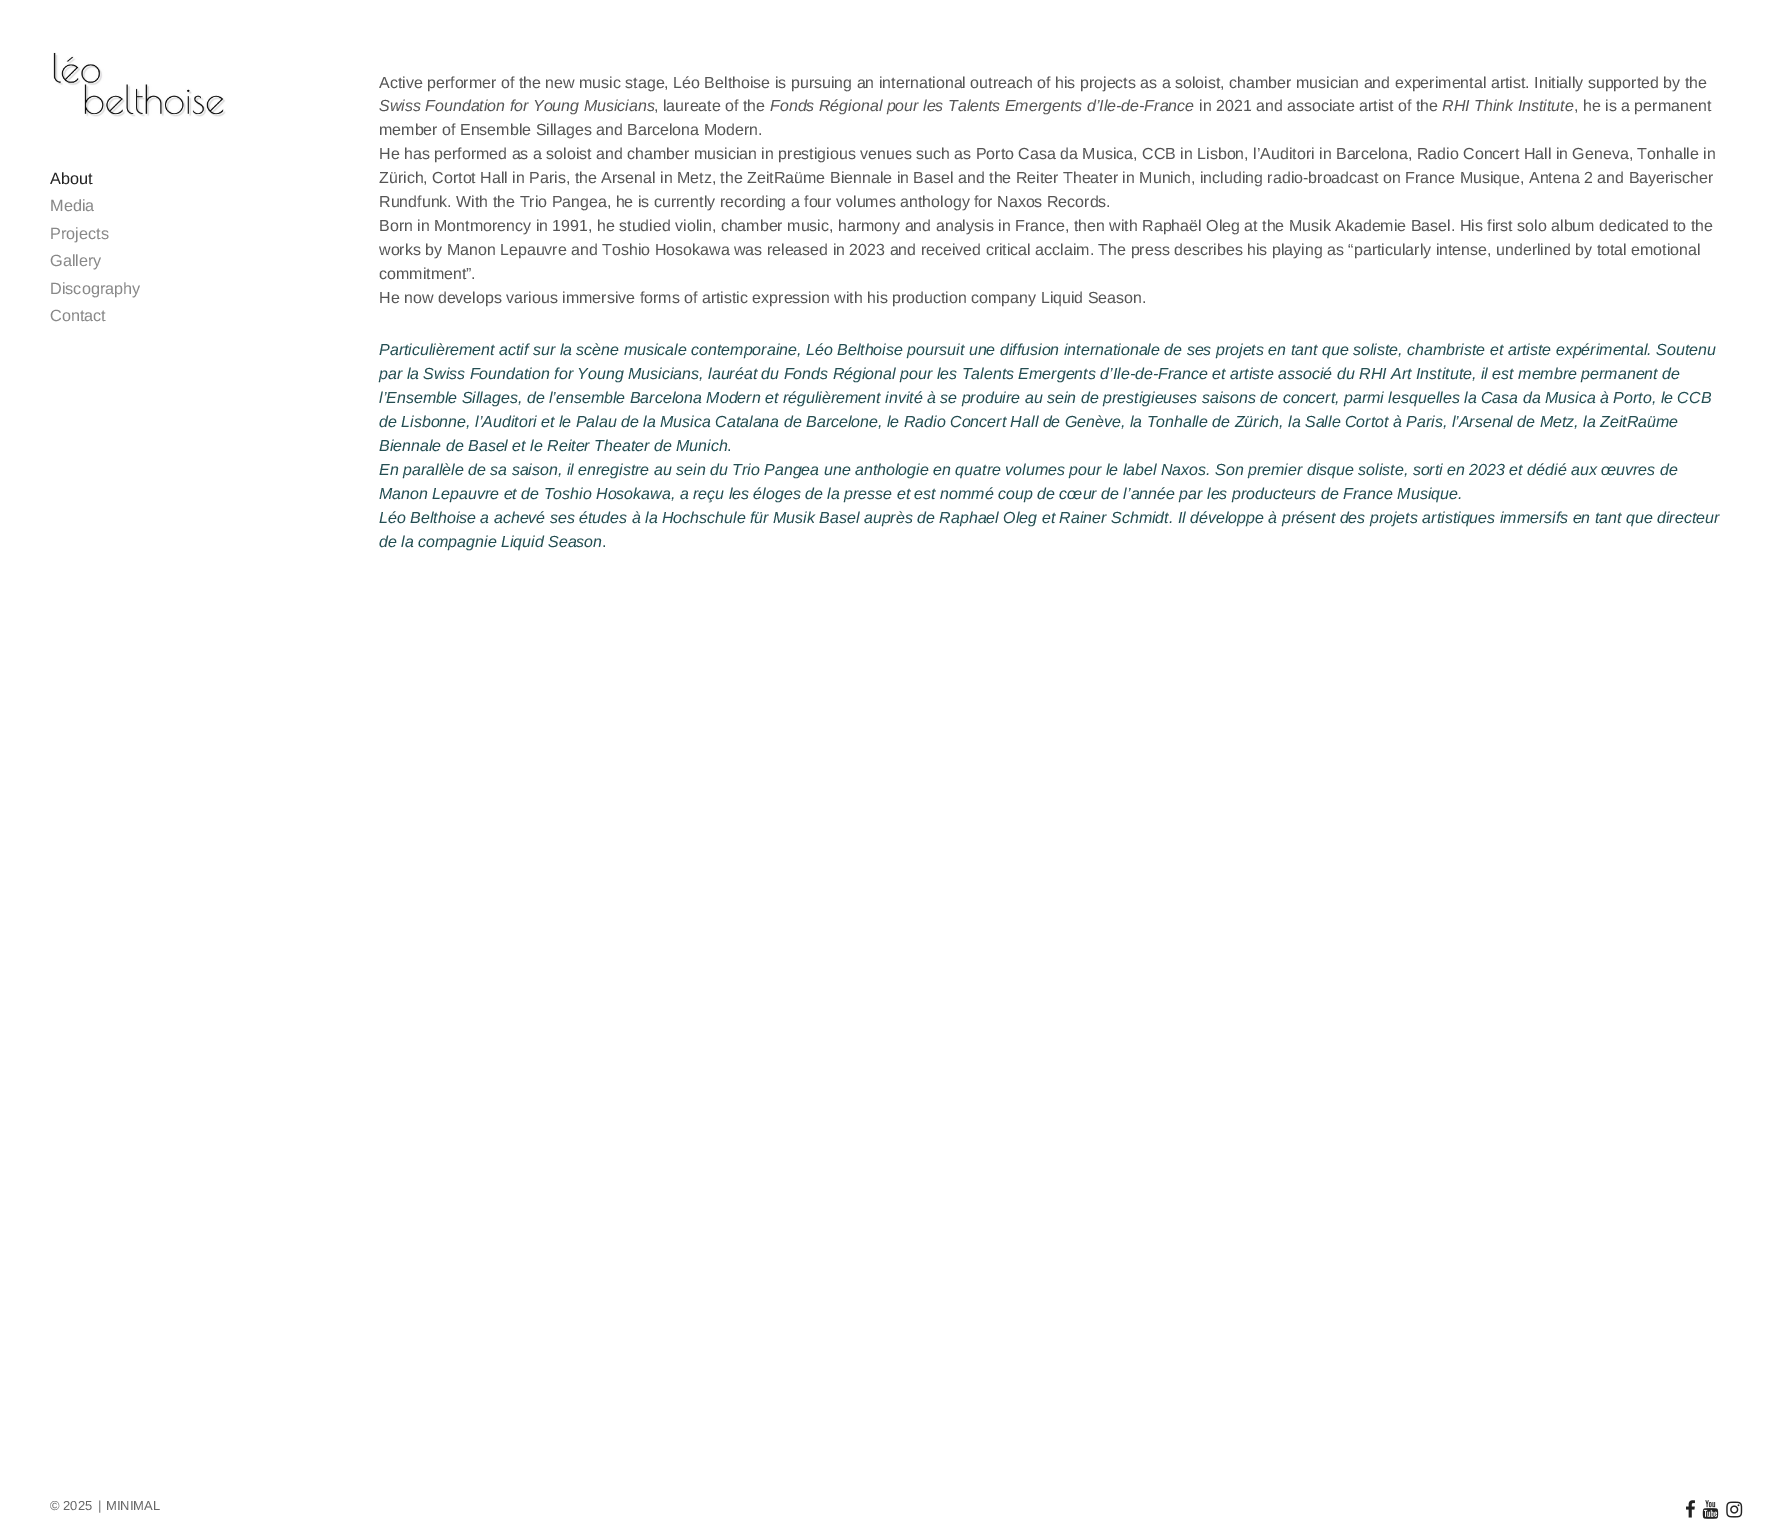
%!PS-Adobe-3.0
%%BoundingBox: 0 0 1792 1535
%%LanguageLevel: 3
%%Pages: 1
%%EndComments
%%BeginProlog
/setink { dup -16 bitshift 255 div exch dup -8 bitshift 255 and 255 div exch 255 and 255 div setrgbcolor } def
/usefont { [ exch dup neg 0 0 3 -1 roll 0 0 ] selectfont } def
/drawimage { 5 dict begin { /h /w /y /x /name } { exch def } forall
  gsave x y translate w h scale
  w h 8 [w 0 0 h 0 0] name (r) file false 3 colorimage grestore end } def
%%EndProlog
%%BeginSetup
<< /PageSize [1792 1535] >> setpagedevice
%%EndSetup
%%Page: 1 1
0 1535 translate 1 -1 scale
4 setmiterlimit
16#FFFFFF setink
0 0 1792 1535 rectfill
(img1.raw) 53 52 173 65 drawimage
/LiberationSans-Regular 16.25 usefont
16#222222 setink
50 184 moveto (About) show
16#888888 setink
[
    [(Media) 50 211]
    [(Projects) 50 239]
    [(Gallery) 50 266]
    [(Discography) 50 294]
    [(Contact) 50 321]
] { aload pop moveto show } forall
/LiberationSans-Regular 16 usefont
16#555555 setink
379 88 moveto (Active performer of the new music stage, Léo Belthoise is pursuing an international outreach of his projects as a soloist, chamber musician and experimental artist. Initially supported by the) show
/LiberationSans-Italic 16 usefont
379 111 moveto (Swiss Foundation for Young Musicians) show
/LiberationSans-Regular 16 usefont
654 111 moveto (, laureate of the) show
/LiberationSans-Italic 16 usefont
770 111 moveto (Fonds Régional pour les Talents Emergents d’Ile-de-France) show
/LiberationSans-Regular 16 usefont
1199 111 moveto (in 2021 and associate artist of the) show
/LiberationSans-Italic 16 usefont
1442 111 moveto (RHI Think Institute) show
/LiberationSans-Regular 16 usefont
[
    [(, he is a permanent) 1574 111]
    [(member of Ensemble Sillages and Barcelona Modern.) 379 135]
    [(He has performed as a soloist and chamber musician in prestigious venues such as Porto Casa da Musica, CCB in Lisbon, l’Auditori in Barcelona, Radio Concert Hall in Geneva, Tonhalle in) 379 159]
    [(Zürich, Cortot Hall in Paris, the Arsenal in Metz, the ZeitRaüme Biennale in Basel and the Reiter Theater in Munich, including radio-broadcast on France Musique, Antena 2 and Bayerischer) 379 183]
    [(Rundfunk. With the Trio Pangea, he is currently recording a four volumes anthology for Naxos Records.) 379 207]
    [(Born in Montmorency in 1991, he studied violin, chamber music, harmony and analysis in France, then with Raphaël Oleg at the Musik Akademie Basel. His first solo album dedicated to the) 379 231]
    [(works by Manon Lepauvre and Toshio Hosokawa was released in 2023 and received critical acclaim. The press describes his playing as “particularly intense, underlined by total emotional) 379 255]
    [(commitment”.) 379 279]
    [(He now develops various immersive forms of artistic expression with his production company Liquid Season.) 379 303]
] { aload pop moveto show } forall
/LiberationSans-Italic 16 usefont
16#234E52 setink
[
    [(Particulièrement actif sur la scène musicale contemporaine, Léo Belthoise poursuit une diffusion internationale de ses projets en tant que soliste, chambriste et artiste expérimental. Soutenu) 379 355]
    [(par la Swiss Foundation for Young Musicians, lauréat du Fonds Régional pour les Talents Emergents d’Ile-de-France et artiste associé du RHI Art Institute, il est membre permanent de) 379 379]
    [(l’Ensemble Sillages, de l’ensemble Barcelona Modern et régulièrement invité à se produire au sein de prestigieuses saisons de concert, parmi lesquelles la Casa da Musica à Porto, le CCB) 379 403]
    [(de Lisbonne, l’Auditori et le Palau de la Musica Catalana de Barcelone, le Radio Concert Hall de Genève, la Tonhalle de Zürich, la Salle Cortot à Paris, l’Arsenal de Metz, la ZeitRaüme) 379 427]
    [(Biennale de Basel et le Reiter Theater de Munich) 379 451]
] { aload pop moveto show } forall
/LiberationSans-Regular 16 usefont
727 451 moveto (.) show
/LiberationSans-Italic 16 usefont
[
    [(En parallèle de sa saison, il enregistre au sein du Trio Pangea une anthologie en quatre volumes pour le label Naxos. Son premier disque soliste, sorti en 2023 et dédié aux œuvres de) 379 475]
    [(Manon Lepauvre et de Toshio Hosokawa, a reçu les éloges de la presse et est nommé coup de cœur de l’année par les producteurs de France Musique.) 379 499]
    [(Léo Belthoise a achevé ses études à la Hochschule für Musik Basel auprès de Raphael Oleg et Rainer Schmidt. Il développe à présent des projets artistiques immersifs en tant que directeur) 379 523]
    [(de la compagnie Liquid Season) 379 547]
] { aload pop moveto show } forall
/LiberationSans-Regular 16 usefont
602 547 moveto (.) show
/LiberationSans-Regular 13 usefont
16#666666 setink
[
    [(© 2025) 50 1510]
    [(|) 98 1510]
    [(MINIMAL) 106 1510]
] { aload pop moveto show } forall
(img2.raw) 1686 1500 9 18 drawimage
(img3.raw) 1702 1500 17 19 drawimage
(img4.raw) 1726 1501 17 17 drawimage
showpage
%%EOF
